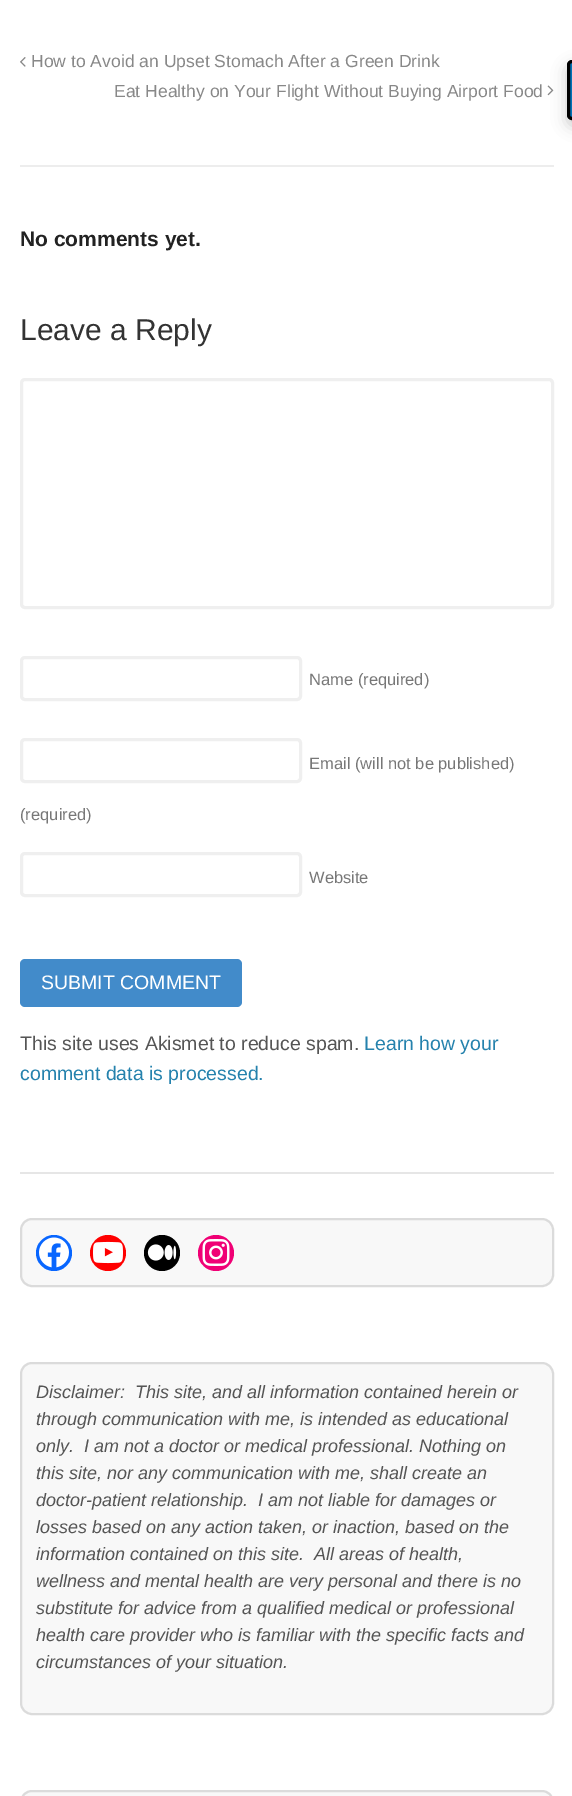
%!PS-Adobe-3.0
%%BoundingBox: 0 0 572 1796
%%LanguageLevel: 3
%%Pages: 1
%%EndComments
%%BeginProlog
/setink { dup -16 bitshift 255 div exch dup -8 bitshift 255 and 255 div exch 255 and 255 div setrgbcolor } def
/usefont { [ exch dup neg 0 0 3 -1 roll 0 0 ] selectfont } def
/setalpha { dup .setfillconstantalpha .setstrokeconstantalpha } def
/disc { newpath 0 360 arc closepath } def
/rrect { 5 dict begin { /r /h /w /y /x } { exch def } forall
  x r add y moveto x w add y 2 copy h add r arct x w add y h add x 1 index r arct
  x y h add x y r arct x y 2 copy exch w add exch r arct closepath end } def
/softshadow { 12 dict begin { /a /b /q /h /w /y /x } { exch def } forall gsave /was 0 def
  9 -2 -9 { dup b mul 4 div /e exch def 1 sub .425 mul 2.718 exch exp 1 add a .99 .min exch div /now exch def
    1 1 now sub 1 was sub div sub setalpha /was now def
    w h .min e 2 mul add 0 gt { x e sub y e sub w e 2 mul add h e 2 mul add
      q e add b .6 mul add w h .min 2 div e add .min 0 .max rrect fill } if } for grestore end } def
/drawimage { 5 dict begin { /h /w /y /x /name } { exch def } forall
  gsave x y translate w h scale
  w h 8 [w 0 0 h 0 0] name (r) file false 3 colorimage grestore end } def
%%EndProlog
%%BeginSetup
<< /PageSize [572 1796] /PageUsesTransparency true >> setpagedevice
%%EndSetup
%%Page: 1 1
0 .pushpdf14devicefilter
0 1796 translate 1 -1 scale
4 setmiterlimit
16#FFFFFF setink
0 0 572 1796 rectfill
(img1.raw) 20 57 6 10 drawimage
/LiberationSans-Regular 17.55 usefont
16#888888 setink
31 67 moveto (How to Avoid an Upset Stomach After a Green Drink) show
114 97 moveto (Eat Healthy on Your Flight Without Buying Airport Food) show
(img2.raw) 547 85 7 11 drawimage
16#EDEDED setink
20 165 534 2 rectfill
/LiberationSans-Bold 21 usefont
16#222222 setink
20 246 moveto (No comments yet.) show
/LiberationSans-Regular 30 usefont
16#333333 setink
20 340 moveto (Leave a Reply) show
16#EFEFEF setink
3 setlinewidth
21.5 379.5 531 228 3.5 rrect stroke
21.5 657.5 279 42 3.5 rrect stroke
/LiberationSans-Regular 16.5 usefont
16#777777 setink
309 685 moveto (Name \(required\)) show
16#EFEFEF setink
21.5 739.5 279 42 3.5 rrect stroke
16#777777 setink
309 769 moveto (Email \(will not be published\)) show
20 820 moveto (\(required\)) show
16#EFEFEF setink
21.5 853.5 279 42 3.5 rrect stroke
16#777777 setink
309 883 moveto (Website) show
16#428BCA setink
20 959 222 48 5 rrect fill
/LiberationSans-Regular 19.5 usefont
16#FFFFFF setink
41 989 moveto (SUBMIT COMMENT) show
16#555555 setink
20 1050 moveto (This site uses Akismet to reduce spam.) show
16#2582AD setink
364 1050 moveto (Learn how your) show
20 1080 moveto (comment data is processed.) show
16#E6E6E6 setink
20 1172 534 2 rectfill
16#F8F8F8 setink
21 1219 532 67 11 rrect gsave fill grestore
16#DBDBDB setink
2 setlinewidth
stroke
16#0866FF setink
54 1253 18 disc fill
(img3.raw) 39 1237 30 31 drawimage
16#FF0000 setink
108 1253 18 disc fill
(img4.raw) 93 1241 30 23 drawimage
16#000000 setink
162 1253 18 disc fill
(img5.raw) 147 1244 30 17 drawimage
16#F00075 setink
216 1253 18 disc fill
(img6.raw) 202 1239 28 27 drawimage
16#F8F8F8 setink
21 1363 532 351 11 rrect gsave fill grestore
16#DBDBDB setink
stroke
/LiberationSans-Italic 18 usefont
16#555555 setink
[
    [(Disclaimer:  This site, and all information contained herein or) 36 1398]
    [(through communication with me, is intended as educational) 36 1425]
    [(only.  I am not a doctor or medical professional. Nothing on) 36 1452]
    [(this site, nor any communication with me, shall create an) 36 1479]
    [(doctor-patient relationship.  I am not liable for damages or) 36 1506]
    [(losses based on any action taken, or inaction, based on the) 36 1533]
    [(information contained on this site.  All areas of health,) 36 1560]
    [(wellness and mental health are very personal and there is no) 36 1587]
    [(substitute for advice from a qualified medical or professional) 36 1614]
    [(health care provider who is familiar with the specific facts and) 36 1641]
    [(circumstances of your situation.) 36 1668]
] { aload pop moveto show } forall
16#F8F8F8 setink
21 1791 532 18 11 rrect gsave fill grestore
16#DBDBDB setink
stroke
16#000000 setink
567 66 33 60 5 7.5 0.2 softshadow
16#0073B7 setink
572 61.5 moveto 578.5 61.5 lineto 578.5 118.5 lineto 572 118.5 lineto 570 118.5 568.5 117 568.5 115 curveto 568.5 65 lineto 568.5 63 570 61.5 572 61.5 curveto closepath gsave fill grestore
16#000000 setink
3 setlinewidth
stroke
.poppdf14devicefilter showpage
%%EOF
